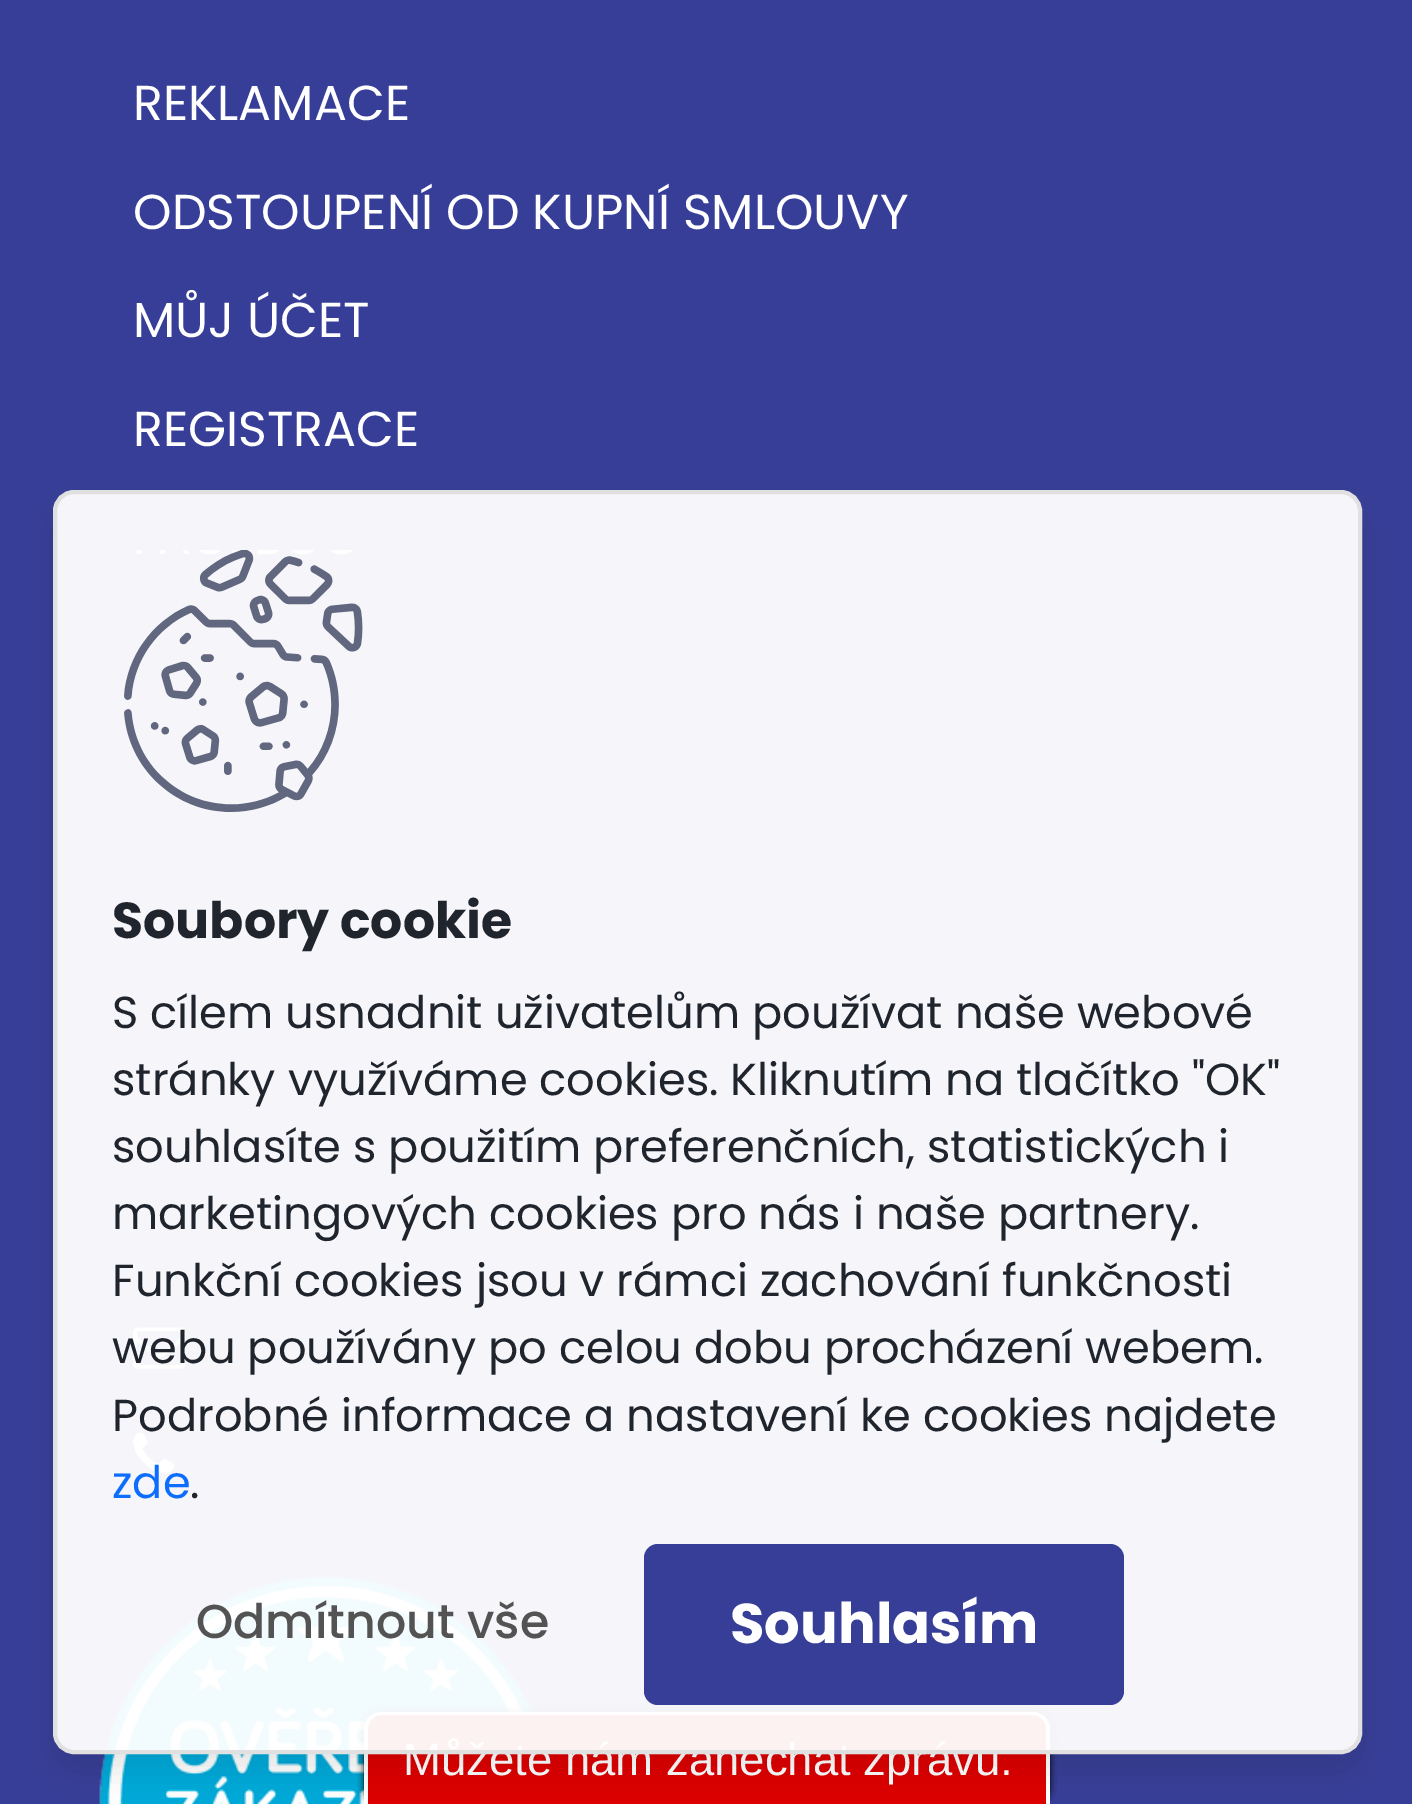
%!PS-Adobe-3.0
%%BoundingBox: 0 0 1412 1804
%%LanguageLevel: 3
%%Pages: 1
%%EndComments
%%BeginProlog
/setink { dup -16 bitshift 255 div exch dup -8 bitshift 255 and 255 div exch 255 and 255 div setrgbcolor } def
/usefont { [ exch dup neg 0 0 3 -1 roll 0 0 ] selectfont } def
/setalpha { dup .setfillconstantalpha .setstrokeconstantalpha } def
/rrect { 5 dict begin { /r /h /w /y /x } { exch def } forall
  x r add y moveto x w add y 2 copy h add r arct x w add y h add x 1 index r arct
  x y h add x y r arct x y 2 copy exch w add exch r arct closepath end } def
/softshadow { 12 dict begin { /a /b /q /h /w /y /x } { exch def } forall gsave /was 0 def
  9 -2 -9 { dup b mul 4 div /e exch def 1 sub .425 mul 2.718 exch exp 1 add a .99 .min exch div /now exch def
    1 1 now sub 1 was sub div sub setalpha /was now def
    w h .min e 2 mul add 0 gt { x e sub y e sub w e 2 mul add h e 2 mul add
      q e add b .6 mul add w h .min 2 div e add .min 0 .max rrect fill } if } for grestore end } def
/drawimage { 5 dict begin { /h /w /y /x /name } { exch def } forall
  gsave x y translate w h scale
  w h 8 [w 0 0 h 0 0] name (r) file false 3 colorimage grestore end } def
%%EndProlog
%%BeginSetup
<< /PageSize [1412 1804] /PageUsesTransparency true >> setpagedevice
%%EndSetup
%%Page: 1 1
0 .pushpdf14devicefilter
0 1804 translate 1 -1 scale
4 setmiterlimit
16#373E98 setink
0 0 1412 1804 rectfill
/Poppins-Regular 49 usefont
16#FFFFFF setink
[
    [(REKLAMACE) 133 120]
    [(ODSTOUPENÍ OD KUPNÍ SMLOUVY) 133 229]
    [(MŮJ ÚČET) 133 337]
    [(REGISTRACE) 133 446]
] { aload pop moveto show } forall
(img1.raw) 133 1327 53 42 drawimage
(img2.raw) 133 1432 42 42 drawimage
(img3.raw) 99 1576 435 228 drawimage
16#000000 setink
364 1712 686 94 18 3.5 1 softshadow
16#DD0000 setink
382 1712 moveto 1032 1712 lineto 1042 1712 1050 1720 1050 1730 curveto 1050 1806 lineto 364 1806 lineto 364 1730 lineto 364 1720 372 1712 382 1712 curveto closepath fill
16#FFFFFF setink
382 1712 moveto 1032 1712 lineto 1042 1712 1050 1719 1050 1729 curveto 1050 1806 lineto 364 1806 lineto 364 1729 lineto 364 1719 372 1712 382 1712 curveto closepath 382 1715 moveto 1032 1715 lineto 1040 1715 1046 1721 1046 1729 curveto 1046 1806 lineto 368 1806 lineto 368 1729 lineto 368 1721 374 1715 382 1715 curveto closepath eofill
/LiberationSans-Regular 45.5 usefont
403 1775 moveto (Můžete nám zanechat zprávu.) show
gsave
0 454 moveto 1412 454 lineto 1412 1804 lineto 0 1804 lineto closepath 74 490 moveto 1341 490 lineto 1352.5 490 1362 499.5 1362 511 curveto 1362 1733 lineto 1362 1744.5 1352.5 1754 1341 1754 curveto 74 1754 lineto 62.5 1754 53 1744.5 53 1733 curveto 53 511 lineto 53 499.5 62.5 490 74 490 curveto closepath eoclip newpath
16#000000 setink
53 508 1309 1263 21 17.5 0.1 softshadow
grestore
0.95 setalpha
55 492 1305 1260 19 rrect fill
1 setalpha
16#E0E0E0 setink
4 setlinewidth
55 492 1305 1260 19 rrect stroke
(img4.raw) 124 550 239 262 drawimage
/Poppins-Bold 50.5 usefont
16#1F242D setink
112 938 moveto (Soubory cookie) show
/Poppins-Regular 44.8 usefont
[
    [(S cílem usnadnit uživatelům používat naše webové) 112 1028]
    [(stránky využíváme cookies. Kliknutím na tlačítko "OK") 112 1095]
    [(souhlasíte s použitím preferenčních, statistických i) 112 1162]
    [(marketingových cookies pro nás i naše partnery.) 112 1229]
    [(Funkční cookies jsou v rámci zachování funkčnosti) 112 1296]
    [(webu používány po celou dobu procházení webem.) 112 1363]
    [(Podrobné informace a nastavení ke cookies najdete) 112 1431]
] { aload pop moveto show } forall
16#0D6EFD setink
112 1498 moveto (zde) show
16#1F242D setink
190 1498 moveto (.) show
/Poppins-Medium 47.5 usefont
16#535353 setink
196 1638 moveto (Odmítnout vše) show
16#373E98 setink
644 1544 480 161 14 rrect fill
/Poppins-Bold 56 usefont
16#FFFFFF setink
730 1643 moveto (Souhlasím) show
.poppdf14devicefilter showpage
%%EOF
